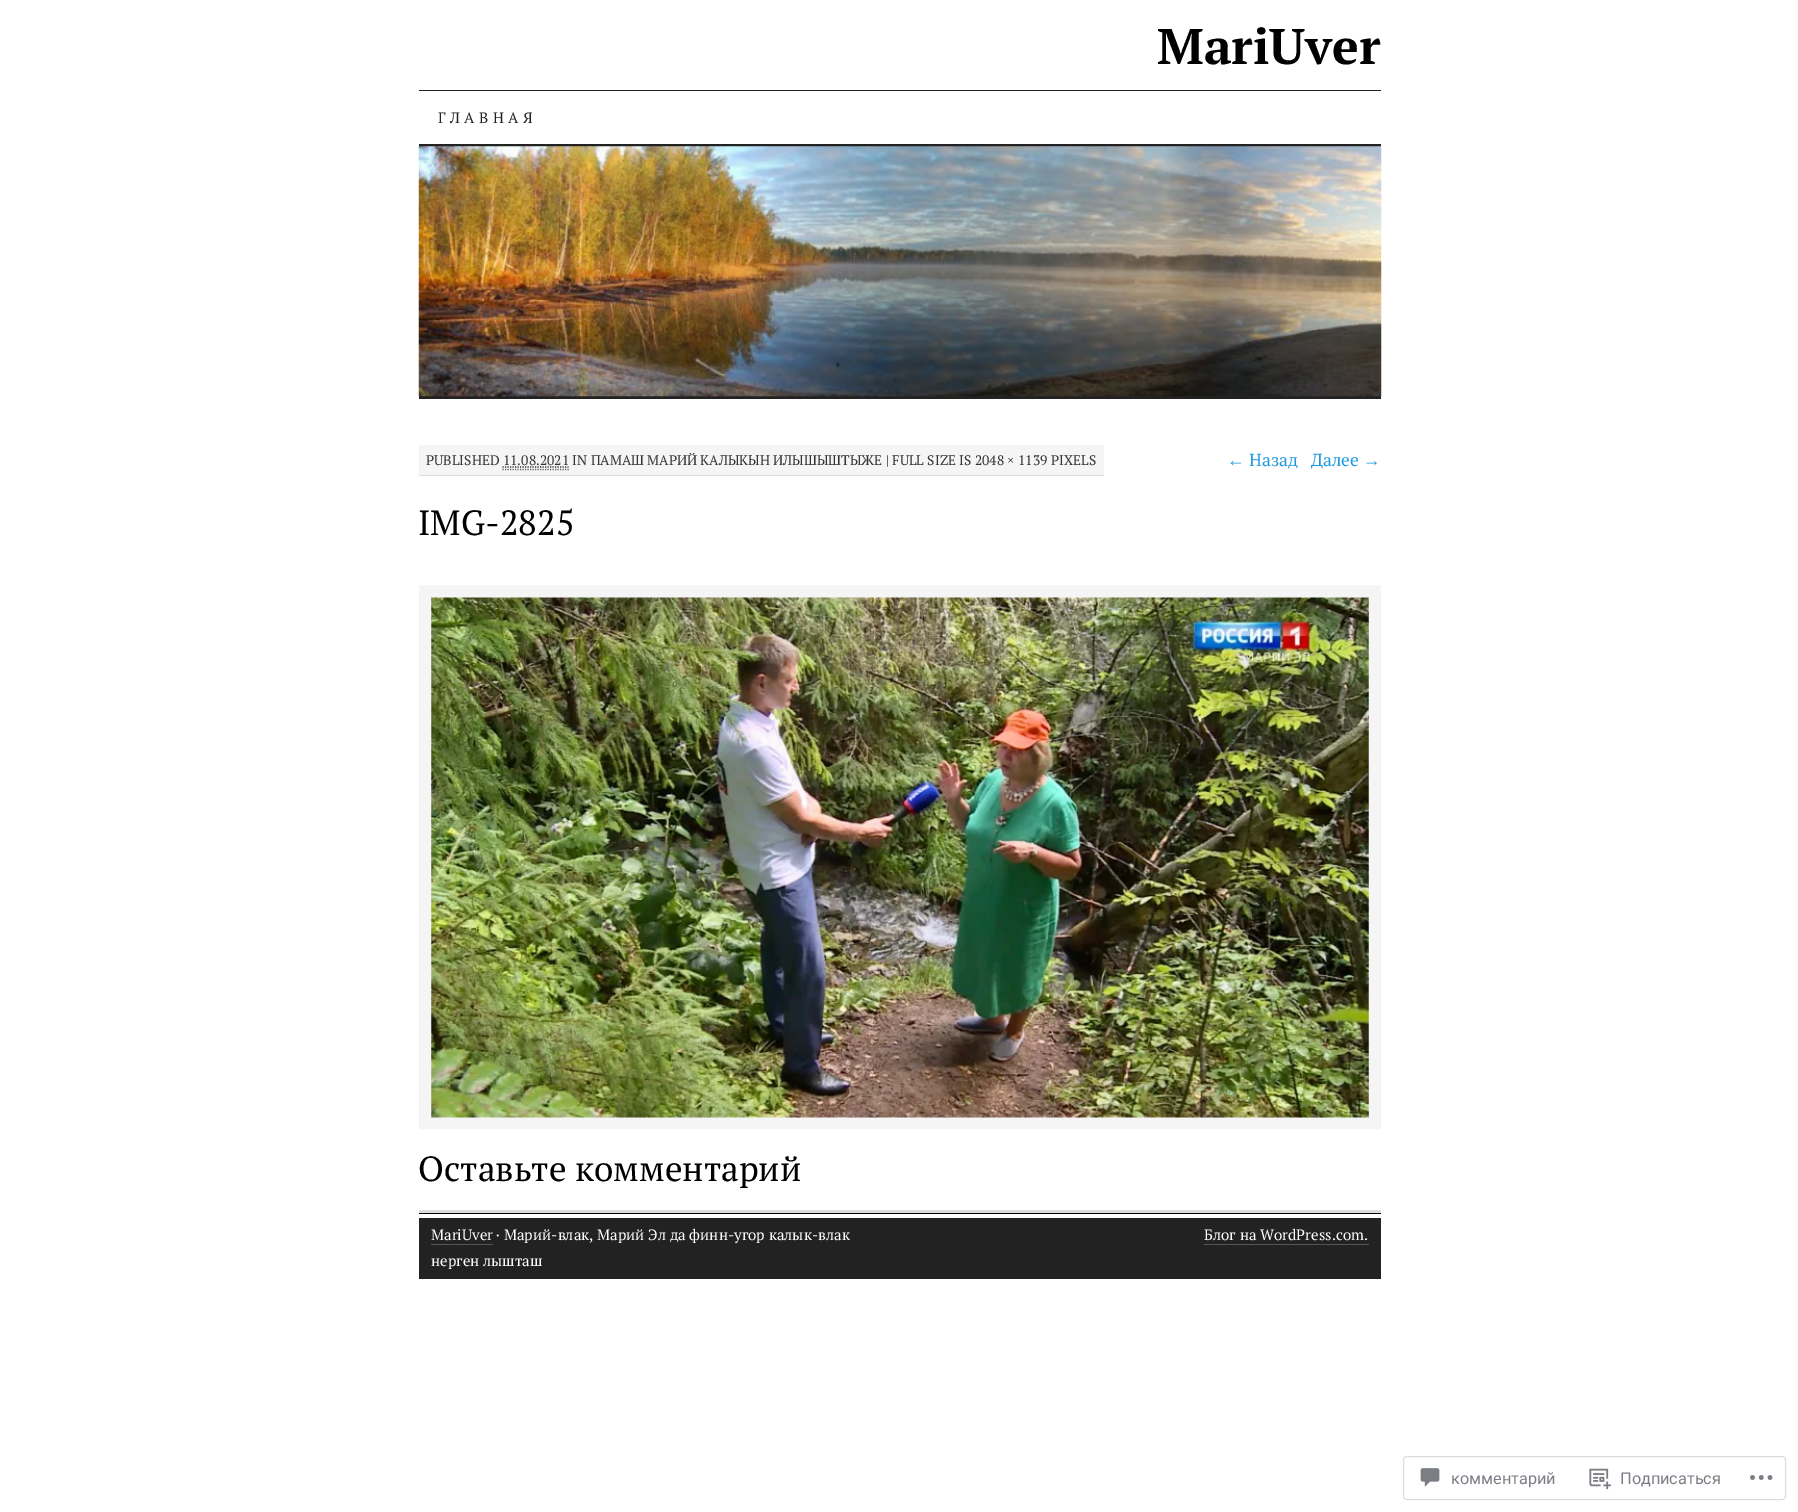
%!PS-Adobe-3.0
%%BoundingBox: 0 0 1798 1512
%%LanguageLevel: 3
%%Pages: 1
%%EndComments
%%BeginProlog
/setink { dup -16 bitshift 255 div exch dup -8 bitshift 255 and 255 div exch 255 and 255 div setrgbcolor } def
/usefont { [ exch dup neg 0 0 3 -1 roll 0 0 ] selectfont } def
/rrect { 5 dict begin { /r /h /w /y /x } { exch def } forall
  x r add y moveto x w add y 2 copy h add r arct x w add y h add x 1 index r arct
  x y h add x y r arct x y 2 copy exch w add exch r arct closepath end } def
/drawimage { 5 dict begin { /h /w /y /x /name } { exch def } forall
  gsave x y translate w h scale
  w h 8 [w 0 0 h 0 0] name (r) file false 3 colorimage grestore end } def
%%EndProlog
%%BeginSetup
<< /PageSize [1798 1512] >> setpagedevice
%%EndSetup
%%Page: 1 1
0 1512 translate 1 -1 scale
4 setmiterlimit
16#FFFFFF setink
0 0 1798 1512 rectfill
/PTSerif-Bold 50 usefont
16#000000 setink
1157 64 moveto (MariUver) show
16#222222 setink
419 90 962 1 rectfill
419 144 962 3 rectfill
/PTSerif-Regular 15 usefont
438 123 moveto 4.5 0 (ГЛАВНАЯ) ashow
419 396 962 3 rectfill
(img1.raw) 418 146 964 251 drawimage
16#F5F5F5 setink
419 445 685 30 rectfill
16#DDDDDD setink
419 475 685 1 rectfill
/PTSerif-Regular 13.75 usefont
16#333333 setink
426 465 moveto (PUBLISHED 11.08.2021 IN ПАМАШ МАРИЙ КАЛЫКЫН ИЛЫШЫШТЫЖЕ | FULL SIZE IS 2048 × 1139 PIXELS) show
1.2 setlinewidth
[1.25 1.25] 0 setdash
502.5 467 moveto 568.5 467 lineto stroke
16#666666 setink
502.5 469.5 moveto 569 469.5 lineto stroke
/LiberationSerif-Regular 17.5 usefont
16#1C9BDC setink
1227 466 moveto (←) show
/PTSerif-Regular 17.5 usefont
1249 466 moveto (Назад) show
1311 466 moveto (Далее) show
/LiberationSerif-Regular 17.5 usefont
1363 466 moveto (→) show
/PTSerif-Regular 35 usefont
16#000000 setink
418 535 moveto (IMG-2825) show
16#F5F5F5 setink
419 585 962 544 rectfill
(img2.raw) 431 597 938 521 drawimage
16#000000 setink
418 1181 moveto (Оставьте комментарий) show
[
    [419 1210 962 3 16#DCDCDE]
    [419 1213 962 1 16#000000]
    [419 1218 962 61 16#222222]
] { aload pop setink rectfill } forall
/PTSerif-Regular 15 usefont
16#FFFFFF setink
431 1240 moveto (MariUver · Марий-влак, Марий Эл да финн-угор калык-влак) show
16#555555 setink
431 1244 62 1 rectfill
16#FFFFFF setink
431 1266 moveto (нерген лышташ) show
1204 1240 moveto (Блог на WordPress.com.) show
16#555555 setink
1204 1244 165 1 rectfill
16#DDDDDF setink
1 setlinewidth
[] 0 setdash
1403.5 1456.5 382 43 3.5 rrect stroke
(img3.raw) 1420 1468 20 19 drawimage
/Roboto-Regular 16.25 usefont
16#7B7F85 setink
1451 1484 moveto (комментарий) show
(img4.raw) 1589 1468 22 22 drawimage
1620 1484 moveto (Подписаться) show
(img5.raw) 1750 1475 23 5 drawimage
showpage
%%EOF
